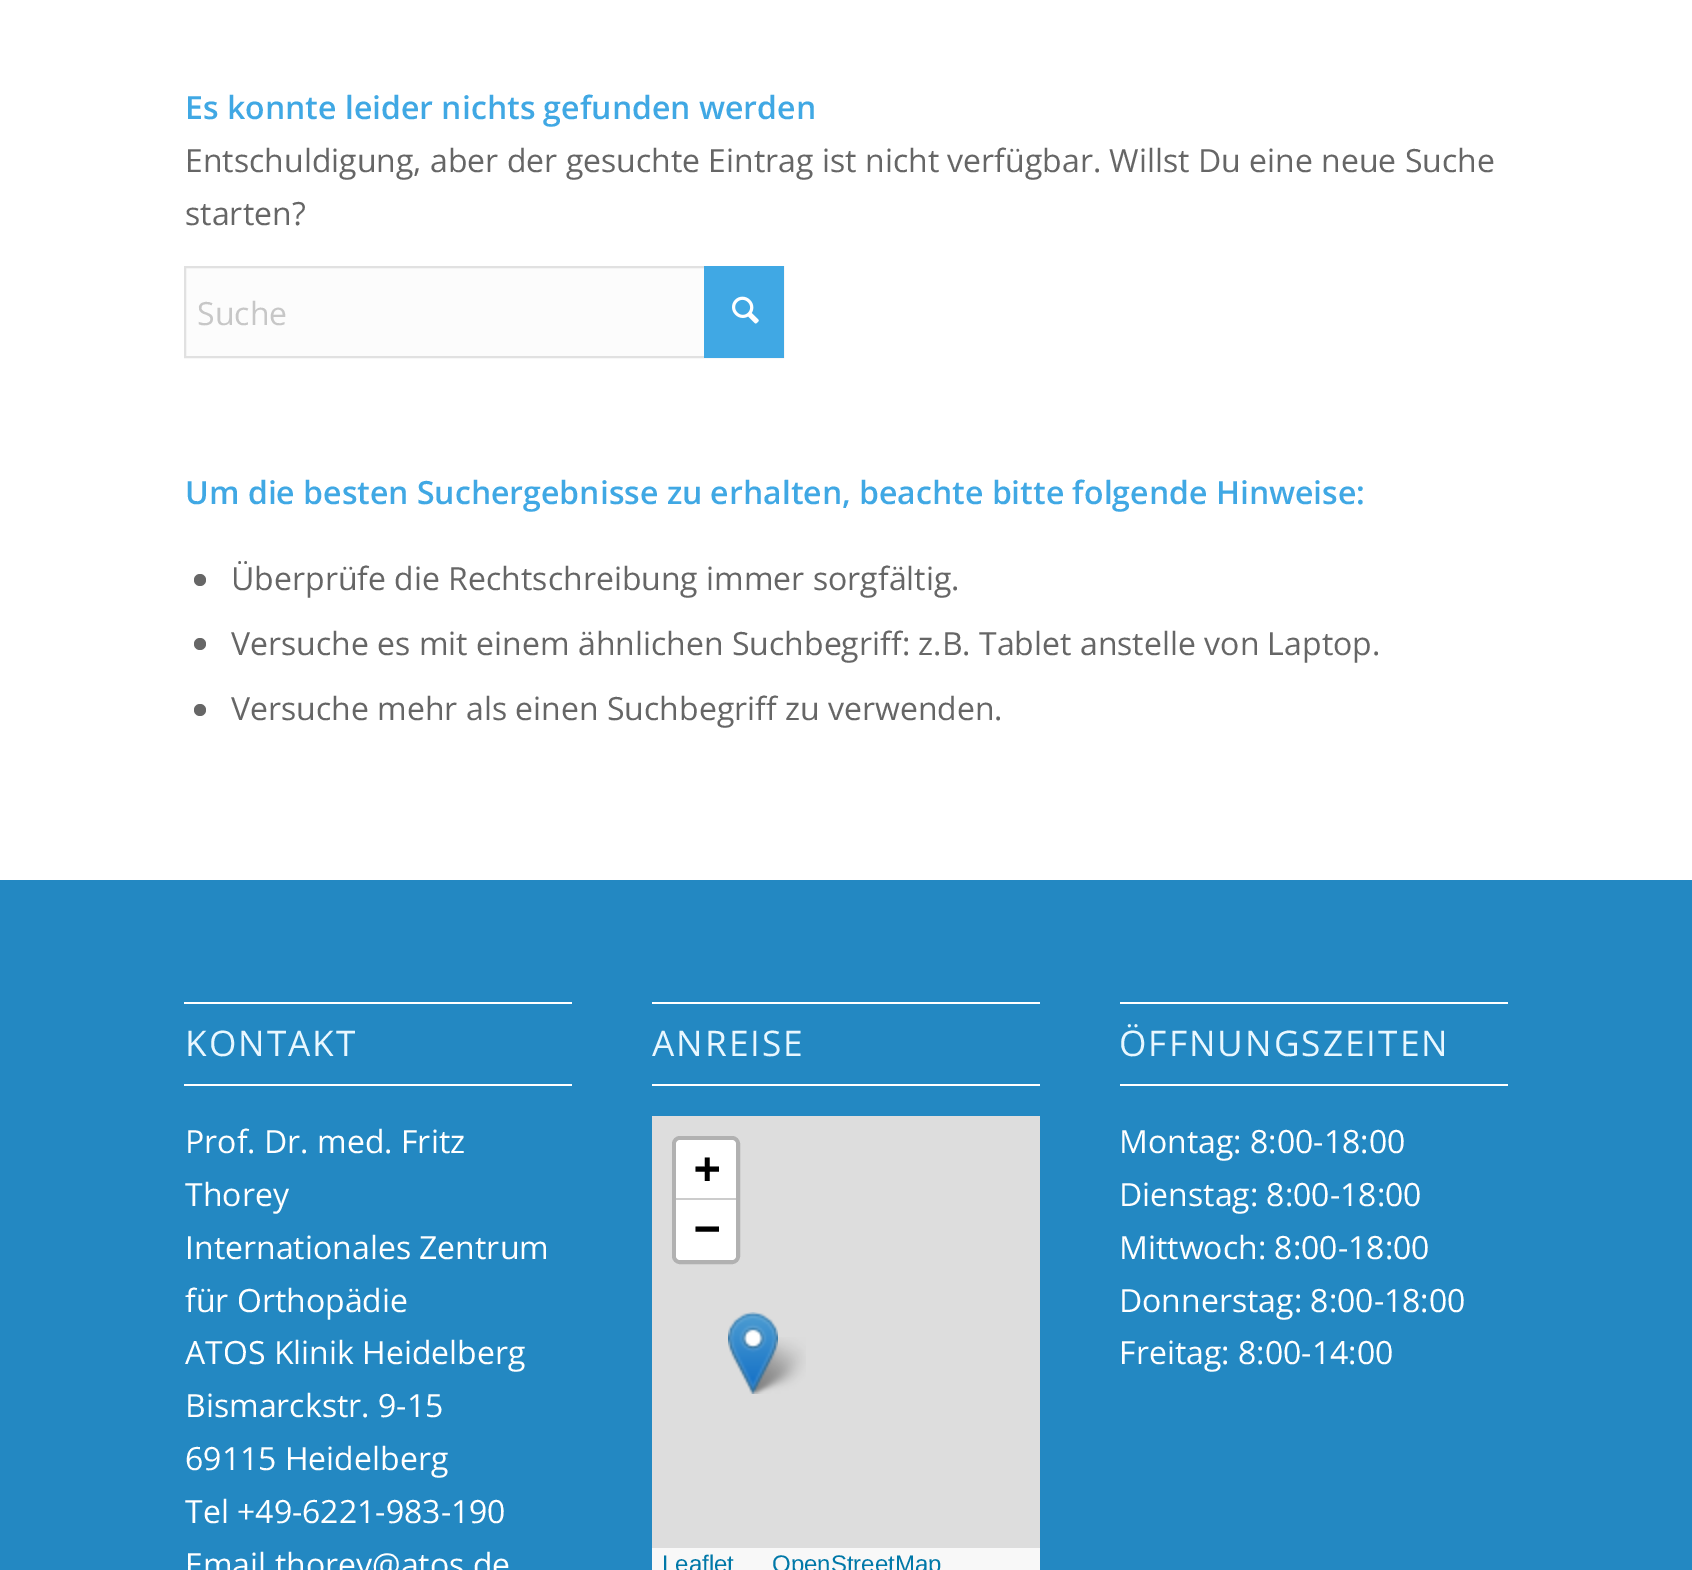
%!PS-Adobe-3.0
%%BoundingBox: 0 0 1692 1570
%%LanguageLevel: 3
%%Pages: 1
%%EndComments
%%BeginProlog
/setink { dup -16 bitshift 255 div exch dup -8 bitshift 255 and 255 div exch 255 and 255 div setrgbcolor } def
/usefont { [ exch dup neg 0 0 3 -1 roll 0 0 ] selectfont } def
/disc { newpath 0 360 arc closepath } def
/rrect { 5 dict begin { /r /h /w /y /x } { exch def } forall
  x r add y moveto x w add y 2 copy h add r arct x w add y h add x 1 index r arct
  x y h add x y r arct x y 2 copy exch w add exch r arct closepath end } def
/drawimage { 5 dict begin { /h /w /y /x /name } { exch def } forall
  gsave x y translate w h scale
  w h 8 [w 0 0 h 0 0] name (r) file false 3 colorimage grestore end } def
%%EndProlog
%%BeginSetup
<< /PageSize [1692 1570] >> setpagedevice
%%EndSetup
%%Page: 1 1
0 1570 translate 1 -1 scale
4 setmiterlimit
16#FFFFFF setink
0 0 1692 1570 rectfill
/OpenSans-SemiBold 32 usefont
16#40A8E4 setink
185 119 moveto (Es konnte leider nichts gefunden werden) show
/OpenSans-Regular 32 usefont
16#666666 setink
185 172 moveto (Entschuldigung, aber der gesuchte Eintrag ist nicht verfügbar. Willst Du eine neue Suche) show
185 225 moveto (starten?) show
16#FCFCFC setink
186 268 518 88 rectfill
16#E1E1E1 setink
2 setlinewidth
185 267 598 90 rectstroke
16#C7C7C7 setink
197 325 moveto (Suche) show
16#40A8E4 setink
704 266 80 92 rectfill
(img1.raw) 732 296 27 28 drawimage
/OpenSans-SemiBold 32 usefont
185 504 moveto (Um die besten Suchergebnisse zu erhalten, beachte bitte folgende Hinweise:) show
16#666666 setink
200 580 6 disc fill
/OpenSans-Regular 32 usefont
231 590 moveto (Überprüfe die Rechtschreibung immer sorgfältig.) show
200 644 6 disc fill
231 655 moveto (Versuche es mit einem ähnlichen Suchbegriff: z.B. Tablet anstelle von Laptop.) show
200 710 6 disc fill
231 720 moveto (Versuche mehr als einen Suchbegriff zu verwenden.) show
[
    [0 880 1692 690 16#2388C2]
    [184 1002 388 2 16#FFFFFF]
    [184 1084 388 2 16#FFFFFF]
] { aload pop setink rectfill } forall
/OpenSans-Regular 35.25 usefont
16#E8F7FF setink
185 1056 moveto 2 0 (KONTAKT) ashow
/OpenSans-Regular 32 usefont
16#FFFFFF setink
[
    [(Prof. Dr. med. Fritz) 185 1153]
    [(Thorey) 185 1206]
    [(Internationales Zentrum) 185 1259]
    [(für Orthopädie) 185 1312]
    [(ATOS Klinik Heidelberg) 185 1364]
    [(Bismarckstr. 9-15) 185 1417]
    [(69115 Heidelberg) 185 1470]
    [(Tel +49-6221-983-190) 185 1523]
    [(Email thorey@atos.de) 185 1576]
] { aload pop moveto show } forall
652 1002 388 2 rectfill
652 1084 388 2 rectfill
/OpenSans-Regular 35.25 usefont
16#E8F7FF setink
652 1056 moveto 2 0 (ANREISE) ashow
16#DDDDDD setink
652 1116 388 432 rectfill
16#B1B1B1 setink
4 setlinewidth
674 1138 64 124 6 rrect stroke
16#FFFFFF setink
680 1140 moveto 732 1140 lineto 734 1140 736 1142 736 1144 curveto 736 1200 lineto 676 1200 lineto 676 1144 lineto 676 1142 678 1140 680 1140 curveto closepath fill
16#CCCCCC setink
676 1198 60 2 rectfill
/DejaVuSansMono-Bold 44 usefont
16#000000 setink
694 1183 moveto (+) show
16#FFFFFF setink
676 1200 moveto 736 1200 lineto 736 1256 lineto 736 1258 734 1260 732 1260 curveto 680 1260 lineto 678 1260 676 1258 676 1256 curveto closepath fill
16#000000 setink
694 1243 moveto (−) show
16#F8F8F8 setink
652 1548 388 22 rectfill
/LiberationSans-Regular 24 usefont
16#0078A8 setink
662 1572 moveto (Leaflet) show
772 1572 moveto (OpenStreetMap) show
(img3.raw) 746 1337 60 57 drawimage
(img2.raw) 728 1312 50 82 drawimage
16#FFFFFF setink
1120 1002 388 2 rectfill
1120 1084 388 2 rectfill
/OpenSans-Regular 35.25 usefont
16#E8F7FF setink
1119 1056 moveto 2 0 (ÖFFNUNGSZEITEN) ashow
/OpenSans-Regular 32 usefont
16#FFFFFF setink
[
    [(Montag: 8:00-18:00) 1119 1153]
    [(Dienstag: 8:00-18:00) 1119 1206]
    [(Mittwoch: 8:00-18:00) 1119 1259]
    [(Donnerstag: 8:00-18:00) 1119 1312]
    [(Freitag: 8:00-14:00) 1119 1364]
] { aload pop moveto show } forall
showpage
%%EOF
